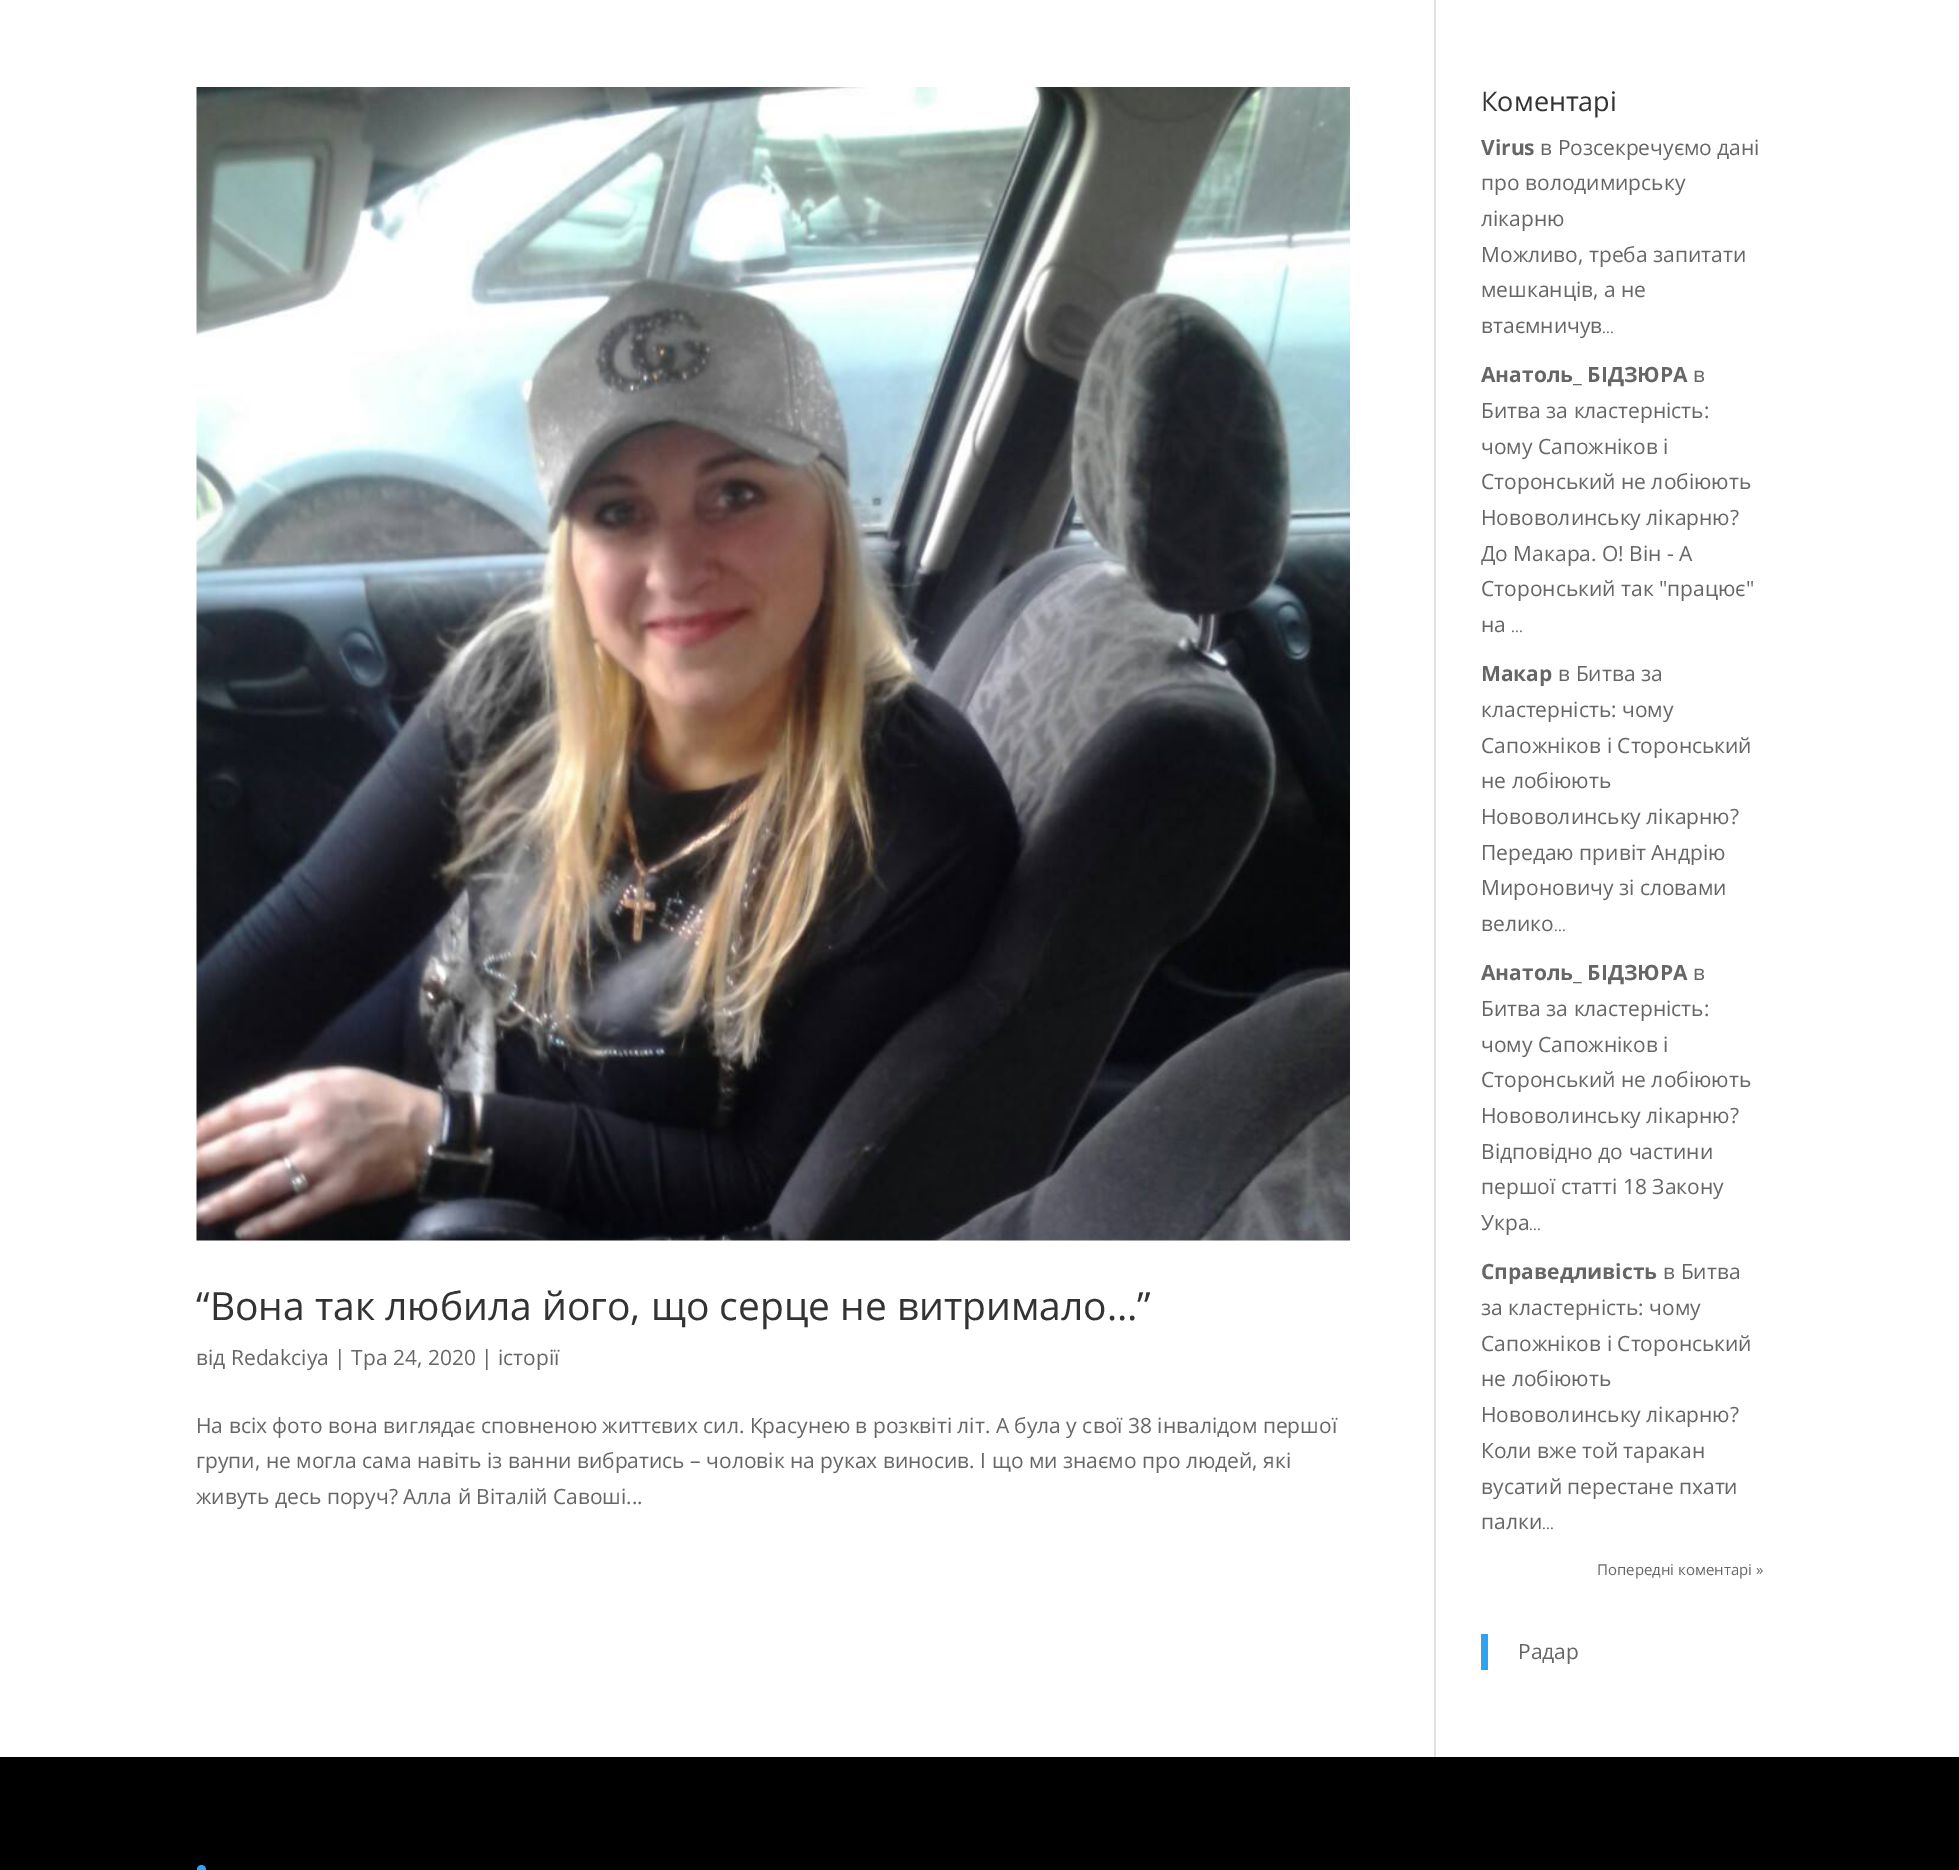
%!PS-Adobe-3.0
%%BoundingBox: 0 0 1959 1870
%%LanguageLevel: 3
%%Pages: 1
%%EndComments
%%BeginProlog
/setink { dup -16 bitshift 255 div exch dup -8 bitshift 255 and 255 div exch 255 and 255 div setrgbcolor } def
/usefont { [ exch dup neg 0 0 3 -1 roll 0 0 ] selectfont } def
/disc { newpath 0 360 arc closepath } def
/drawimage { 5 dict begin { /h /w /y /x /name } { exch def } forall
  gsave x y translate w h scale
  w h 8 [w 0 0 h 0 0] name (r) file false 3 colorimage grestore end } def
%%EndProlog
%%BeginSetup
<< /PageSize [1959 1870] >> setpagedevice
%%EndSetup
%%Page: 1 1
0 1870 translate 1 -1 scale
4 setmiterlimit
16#FFFFFF setink
0 0 1959 1870 rectfill
16#E2E2E2 setink
1434 0 2 1757 rectfill
(img1.raw) 196 87 1154 1154 drawimage
/OpenSans-Regular 39 usefont
16#333333 setink
196 1320 moveto (“Вона так любила його, що серце не витримало…”) show
/OpenSans-Regular 21 usefont
16#666666 setink
[
    [(від Redakciya | Тра 24, 2020 | історії) 196 1365]
    [(На всіх фото вона виглядає сповненою життєвих сил. Красунею в розквіті літ. А була у свої 38 інвалідом першої) 196 1433]
    [(групи, не могла сама навіть із ванни вибратись – чоловік на руках виносив. І що ми знаємо про людей, які) 196 1468]
    [(живуть десь поруч? Алла й Віталій Савоші...) 196 1504]
] { aload pop moveto show } forall
/OpenSans-Regular 27 usefont
16#333333 setink
1481 111 moveto (Коментарі) show
/OpenSans-Bold 21 usefont
16#666666 setink
1481 155 moveto (Virus) show
/OpenSans-Regular 21 usefont
[
    [(в Розсекречуємо дані) 1540 155]
    [(про володимирську) 1481 190]
    [(лікарню) 1481 226]
    [(Можливо, треба запитати) 1481 262]
    [(мешканців, а не) 1481 297]
    [(втаємничув) 1481 333]
] { aload pop moveto show } forall
/OpenSans-Regular 15 usefont
1602 333 moveto (...) show
/OpenSans-Bold 21 usefont
1481 382 moveto (Анатоль_ БІДЗЮРА) show
/OpenSans-Regular 21 usefont
[
    [(в) 1693 382]
    [(Битва за кластерність:) 1481 418]
    [(чому Сапожніков і) 1481 454]
    [(Сторонський не лобіюють) 1481 489]
    [(Нововолинську лікарню?) 1481 525]
    [(До Макара. О! Він - А) 1481 561]
    [(Сторонський так "працює") 1481 596]
    [(на) 1481 632]
] { aload pop moveto show } forall
/OpenSans-Regular 15 usefont
1511 632 moveto (...) show
/OpenSans-Bold 21 usefont
1481 681 moveto (Макар) show
/OpenSans-Regular 21 usefont
[
    [(в Битва за) 1558 681]
    [(кластерність: чому) 1481 717]
    [(Сапожніков і Сторонський) 1481 753]
    [(не лобіюють) 1481 788]
    [(Нововолинську лікарню?) 1481 824]
    [(Передаю привіт Андрію) 1481 860]
    [(Мироновичу зі словами) 1481 895]
    [(велико) 1481 931]
] { aload pop moveto show } forall
/OpenSans-Regular 15 usefont
1554 931 moveto (...) show
/OpenSans-Bold 21 usefont
1481 980 moveto (Анатоль_ БІДЗЮРА) show
/OpenSans-Regular 21 usefont
[
    [(в) 1693 980]
    [(Битва за кластерність:) 1481 1016]
    [(чому Сапожніков і) 1481 1052]
    [(Сторонський не лобіюють) 1481 1087]
    [(Нововолинську лікарню?) 1481 1123]
    [(Відповідно до частини) 1481 1159]
    [(першої статті 18 Закону) 1481 1194]
    [(Укра) 1481 1230]
] { aload pop moveto show } forall
/OpenSans-Regular 15 usefont
1529 1230 moveto (...) show
/OpenSans-Bold 21 usefont
1481 1279 moveto (Справедливість) show
/OpenSans-Regular 21 usefont
[
    [(в Битва) 1663 1279]
    [(за кластерність: чому) 1481 1315]
    [(Сапожніков і Сторонський) 1481 1351]
    [(не лобіюють) 1481 1386]
    [(Нововолинську лікарню?) 1481 1422]
    [(Коли вже той таракан) 1481 1458]
    [(вусатий перестане пхати) 1481 1494]
    [(палки) 1481 1529]
] { aload pop moveto show } forall
/OpenSans-Regular 15 usefont
1542 1529 moveto (...) show
1597 1575 moveto (Попередні коментарі ») show
16#2EA3F2 setink
1481 1634 7 36 rectfill
/OpenSans-Regular 21 usefont
16#666666 setink
1518 1659 moveto (Радар) show
16#000000 setink
0 1757 1959 113 rectfill
16#2EA3F2 setink
201.5 1869.5 4.5 disc fill
showpage
%%EOF
